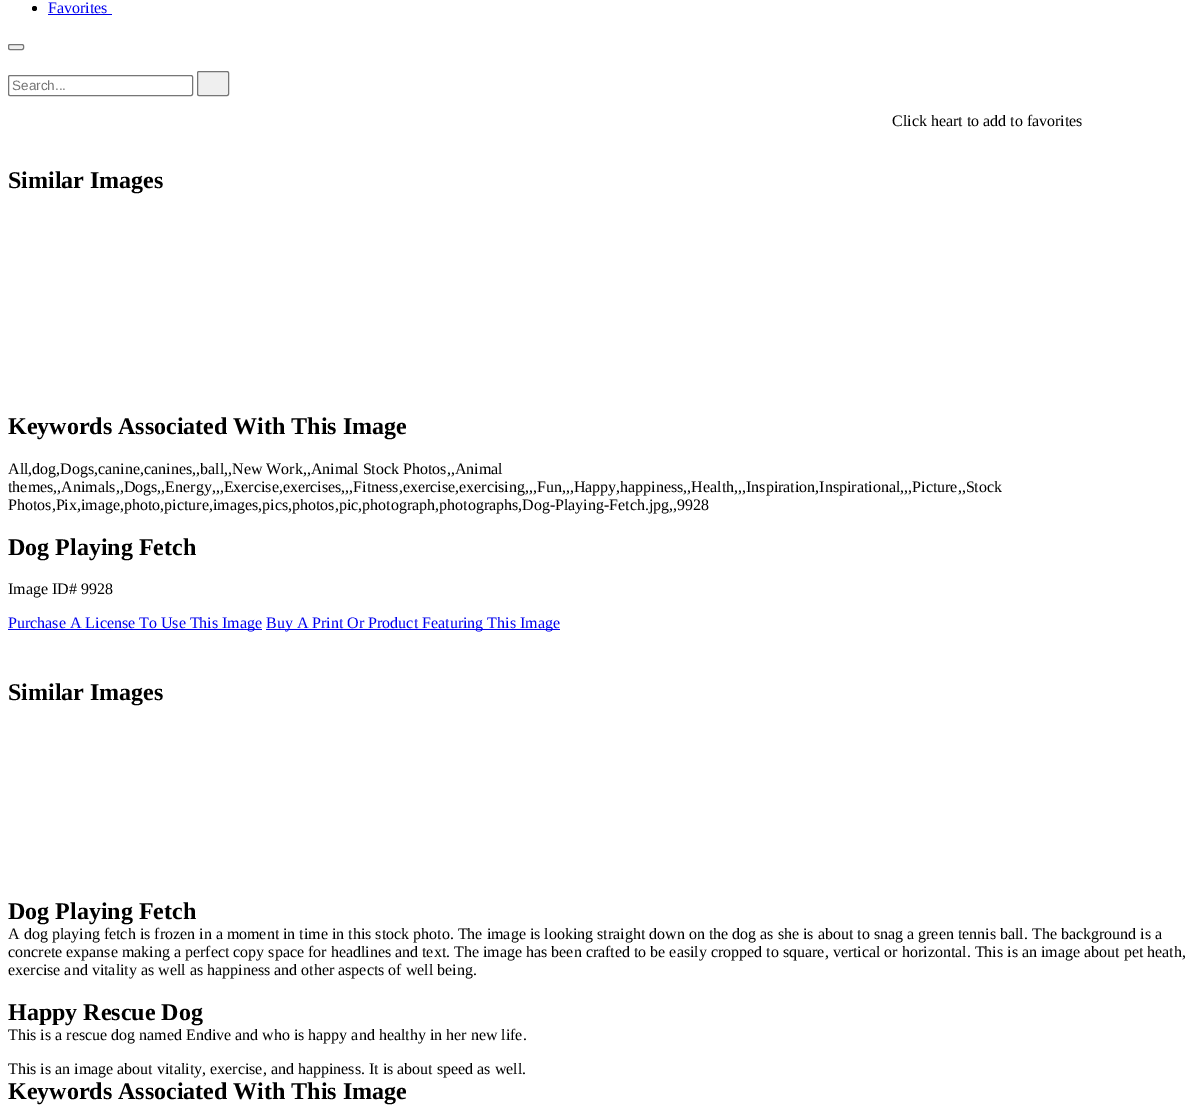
%!PS-Adobe-3.0
%%BoundingBox: 0 0 1195 1105
%%LanguageLevel: 3
%%Pages: 1
%%EndComments
%%BeginProlog
/setink { dup -16 bitshift 255 div exch dup -8 bitshift 255 and 255 div exch 255 and 255 div setrgbcolor } def
/usefont { [ exch dup neg 0 0 3 -1 roll 0 0 ] selectfont } def
/disc { newpath 0 360 arc closepath } def
/rrect { 5 dict begin { /r /h /w /y /x } { exch def } forall
  x r add y moveto x w add y 2 copy h add r arct x w add y h add x 1 index r arct
  x y h add x y r arct x y 2 copy exch w add exch r arct closepath end } def
%%EndProlog
%%BeginSetup
<< /PageSize [1195 1105] >> setpagedevice
%%EndSetup
%%Page: 1 1
0 1105 translate 1 -1 scale
4 setmiterlimit
16#FFFFFF setink
0 0 1195 1105 rectfill
16#000000 setink
34.5 8.5 2.5 disc fill
/LiberationSerif-Regular 16 usefont
16#0000EE setink
48 13 moveto (Favorites) show
48 14 64 1 rectfill
16#EFEFEF setink
8.5 44.5 15 5 1.5 rrect gsave fill grestore
16#767676 setink
stroke
8.5 75.5 184 20 1.5 rrect stroke
/LiberationSans-Regular 13.5 usefont
16#757575 setink
12 90 moveto (Search...) show
16#EFEFEF setink
197.5 71.5 31 24 1.5 rrect gsave fill grestore
16#767676 setink
stroke
/LiberationSerif-Regular 16 usefont
16#000000 setink
892 126 moveto (Click heart to add to favorites) show
/LiberationSerif-Bold 24 usefont
8 188 moveto (Similar Images) show
8 434 moveto (Keywords Associated With This Image) show
/LiberationSerif-Regular 16 usefont
[
    [(All,dog,Dogs,canine,canines,,ball,,New Work,,Animal Stock Photos,,Animal) 8 474]
    [(themes,,Animals,,Dogs,,Energy,,,Exercise,exercises,,,Fitness,exercise,exercising,,,Fun,,,Happy,happiness,,Health,,,Inspiration,Inspirational,,,Picture,,Stock) 8 492]
    [(Photos,Pix,image,photo,picture,images,pics,photos,pic,photograph,photographs,Dog-Playing-Fetch.jpg,,9928) 8 510]
] { aload pop moveto show } forall
/LiberationSerif-Bold 24 usefont
8 555 moveto (Dog Playing Fetch) show
/LiberationSerif-Regular 16 usefont
8 594 moveto (Image ID# 9928) show
16#0000EE setink
8 629 254 1 rectfill
8 628 moveto (Purchase A License To Use This Image) show
266 629 294 1 rectfill
266 628 moveto (Buy A Print Or Product Featuring This Image) show
/LiberationSerif-Bold 24 usefont
16#000000 setink
8 700 moveto (Similar Images) show
8 919 moveto (Dog Playing Fetch) show
/LiberationSerif-Regular 16 usefont
[
    [(A dog playing fetch is frozen in a moment in time in this stock photo. The image is looking straight down on the dog as she is about to snag a green tennis ball. The background is a) 8 939]
    [(concrete expanse making a perfect copy space for headlines and text. The image has been crafted to be easily cropped to square, vertical or horizontal. This is an image about pet heath,) 8 957]
    [(exercise and vitality as well as happiness and other aspects of well being.) 8 975]
] { aload pop moveto show } forall
/LiberationSerif-Bold 24 usefont
8 1020 moveto (Happy Rescue Dog) show
/LiberationSerif-Regular 16 usefont
8 1040 moveto (This is a rescue dog named Endive and who is happy and healthy in her new life.) show
8 1074 moveto (This is an image about vitality, exercise, and happiness. It is about speed as well.) show
/LiberationSerif-Bold 24 usefont
8 1099 moveto (Keywords Associated With This Image) show
showpage
%%EOF
